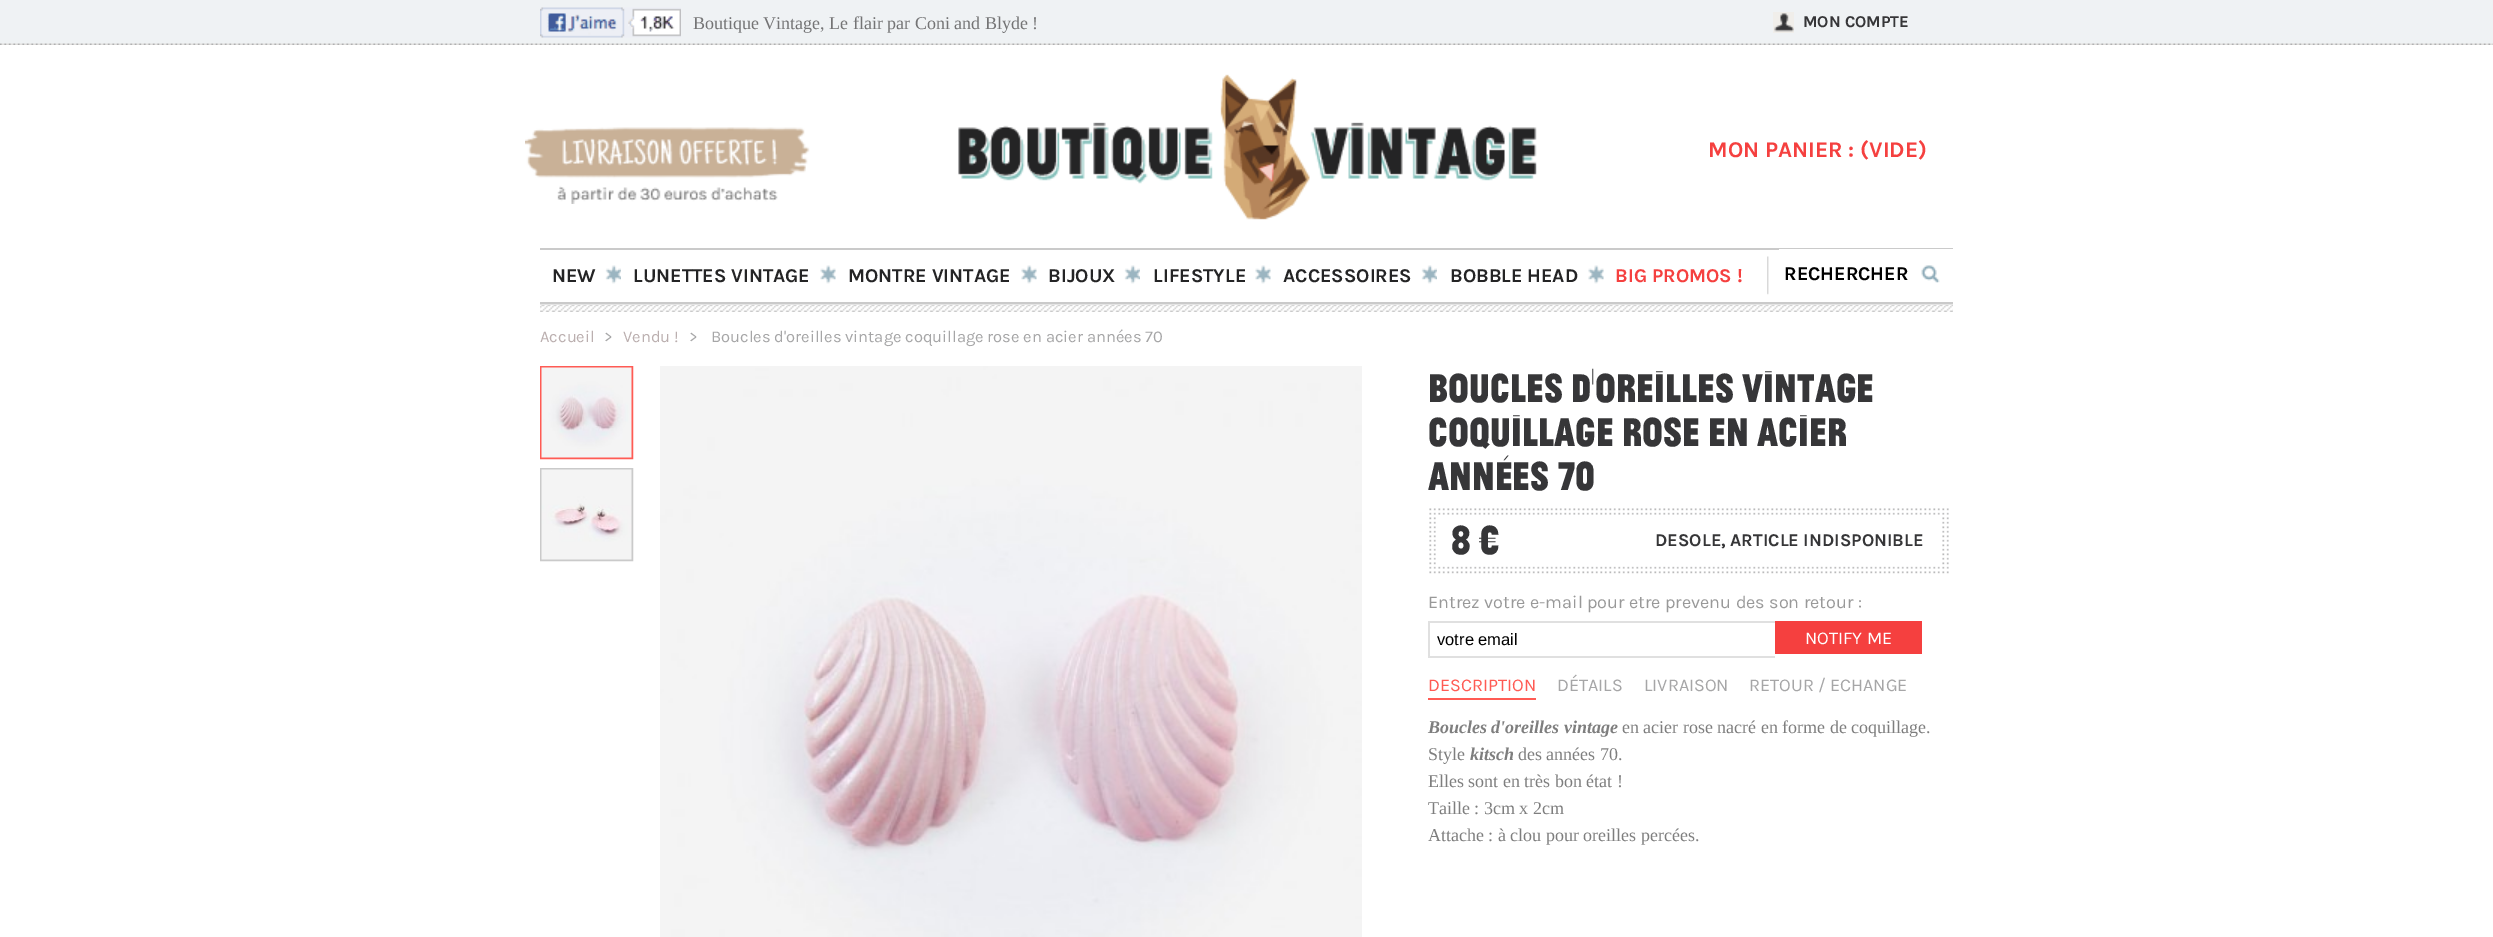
%!PS-Adobe-3.0
%%BoundingBox: 0 0 2493 937
%%LanguageLevel: 3
%%Pages: 1
%%EndComments
%%BeginProlog
/setink { dup -16 bitshift 255 div exch dup -8 bitshift 255 and 255 div exch 255 and 255 div setrgbcolor } def
/usefont { [ exch dup neg 0 0 3 -1 roll 0 0 ] selectfont } def
/drawimage { 5 dict begin { /h /w /y /x /name } { exch def } forall
  gsave x y translate w h scale
  w h 8 [w 0 0 h 0 0] name (r) file false 3 colorimage grestore end } def
%%EndProlog
%%BeginSetup
<< /PageSize [2493 937] >> setpagedevice
%%EndSetup
%%Page: 1 1
0 937 translate 1 -1 scale
4 setmiterlimit
16#FFFFFF setink
0 0 2493 937 rectfill
(img1.raw) 0 0 2493 45 drawimage
(img2.raw) 540 7 141 31 drawimage
/LiberationSerif-Regular 18 usefont
16#747475 setink
693 29 moveto (Boutique Vintage, Le flair par Coni and Blyde !) show
(img3.raw) 1773 12 21 21 drawimage
/Karla-Bold 16.5 usefont
16#363638 setink
1803 27 moveto (MON COMPTE) show
(img4.raw) 540 304 1413 8 drawimage
(img5.raw) 525 127 285 77 drawimage
(img6.raw) 958 74 579 146 drawimage
/Karla-Bold 22.5 usefont
16#F5403F setink
1708 157 moveto (MON PANIER : \(VIDE\)) show
16#CACACA setink
540 248 1413 2 rectfill
540 302 1413 2 rectfill
(img7.raw) 605 265 16 19 drawimage
/Karla-Bold 19.5 usefont
16#242425 setink
552 282 moveto (NEW) show
(img8.raw) 820 265 16 19 drawimage
633 282 moveto (LUNETTES VINTAGE) show
(img8.raw) 1021 265 16 19 drawimage
848 282 moveto (MONTRE VINTAGE) show
(img7.raw) 1124 265 16 19 drawimage
1048 282 moveto (BIJOUX) show
(img8.raw) 1255 265 16 19 drawimage
1153 282 moveto (LIFESTYLE) show
(img9.raw) 1421 265 16 19 drawimage
1283 282 moveto (ACCESSOIRES) show
(img8.raw) 1588 265 16 19 drawimage
1450 282 moveto (BOBBLE HEAD) show
(img10.raw) 1767 256 2 39 drawimage
16#F5403F setink
1615 282 moveto (BIG PROMOS !) show
16#FFFFFF setink
1779 249 174 1 rectfill
(img11.raw) 1921 265 19 18 drawimage
16#000000 setink
1784 280 moveto (RECHERCHER) show
/Karla-Regular 16.5 usefont
16#BBAFAF setink
540 342 moveto (Accueil) show
16#A6A6A7 setink
604 342 moveto (>) show
16#BBAFAF setink
623 342 moveto (Vendu !) show
16#A6A6A7 setink
689 342 moveto (>) show
711 342 moveto (Boucles d'oreilles vintage coquillage rose en acier années 70) show
16#FF5B54 setink
2 setlinewidth
541 367 91 91 rectstroke
(img12.raw) 541 367 91 91 drawimage
16#CACACA setink
541 469 91 91 rectstroke
(img13.raw) 541 469 91 91 drawimage
(img14.raw) 660 366 702 571 drawimage
/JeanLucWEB-Thin 42 usefont
16#363638 setink
[
    [(Boucles d'oreilles vintage) 1428 402]
    [(coquillage rose en acier) 1428 446]
    [(années 70) 1428 490]
] { aload pop moveto show } forall
(img15.raw) 1429 508 520 66 drawimage
1451 554 moveto (8 €) show
/Karla-Bold 18 usefont
1655 546 moveto (DESOLE, ARTICLE INDISPONIBLE) show
/Karla-Regular 18 usefont
16#999999 setink
1428 608 moveto (Entrez votre e-mail pour etre prevenu des son retour :) show
[
    [1428 621 347 2 16#E0E0E0]
    [1428 656 347 2 16#E0E0E0]
    [1428 621 2 36 16#E0E0E0]
] { aload pop setink rectfill } forall
/LiberationSans-Regular 16.5 usefont
16#000000 setink
1437 645 moveto (votre email) show
16#F5403F setink
1775 621 147 33 rectfill
/Karla-Regular 18 usefont
16#FFFFFF setink
1805 644 moveto (NOTIFY ME) show
16#FF5B54 setink
1428 698 108 2 rectfill
1428 691 moveto (DESCRIPTION) show
16#A6A6A7 setink
[
    [(DÉTAILS) 1557 691]
    [(LIVRAISON) 1644 691]
    [(RETOUR / ECHANGE) 1749 691]
] { aload pop moveto show } forall
/LiberationSerif-BoldItalic 18 usefont
16#7E7E7E setink
1428 733 moveto (Boucles d'oreilles vintage) show
/LiberationSerif-Regular 18 usefont
1622 733 moveto (en acier rose nacré en forme de coquillage.) show
1428 760 moveto (Style) show
/LiberationSerif-BoldItalic 18 usefont
1470 760 moveto (kitsch) show
/LiberationSerif-Regular 18 usefont
[
    [(des années 70.) 1518 760]
    [(Elles sont en très bon état !) 1428 787]
    [(Taille : 3cm x 2cm) 1428 814]
    [(Attache : à clou pour oreilles percées.) 1428 841]
] { aload pop moveto show } forall
showpage
%%EOF
